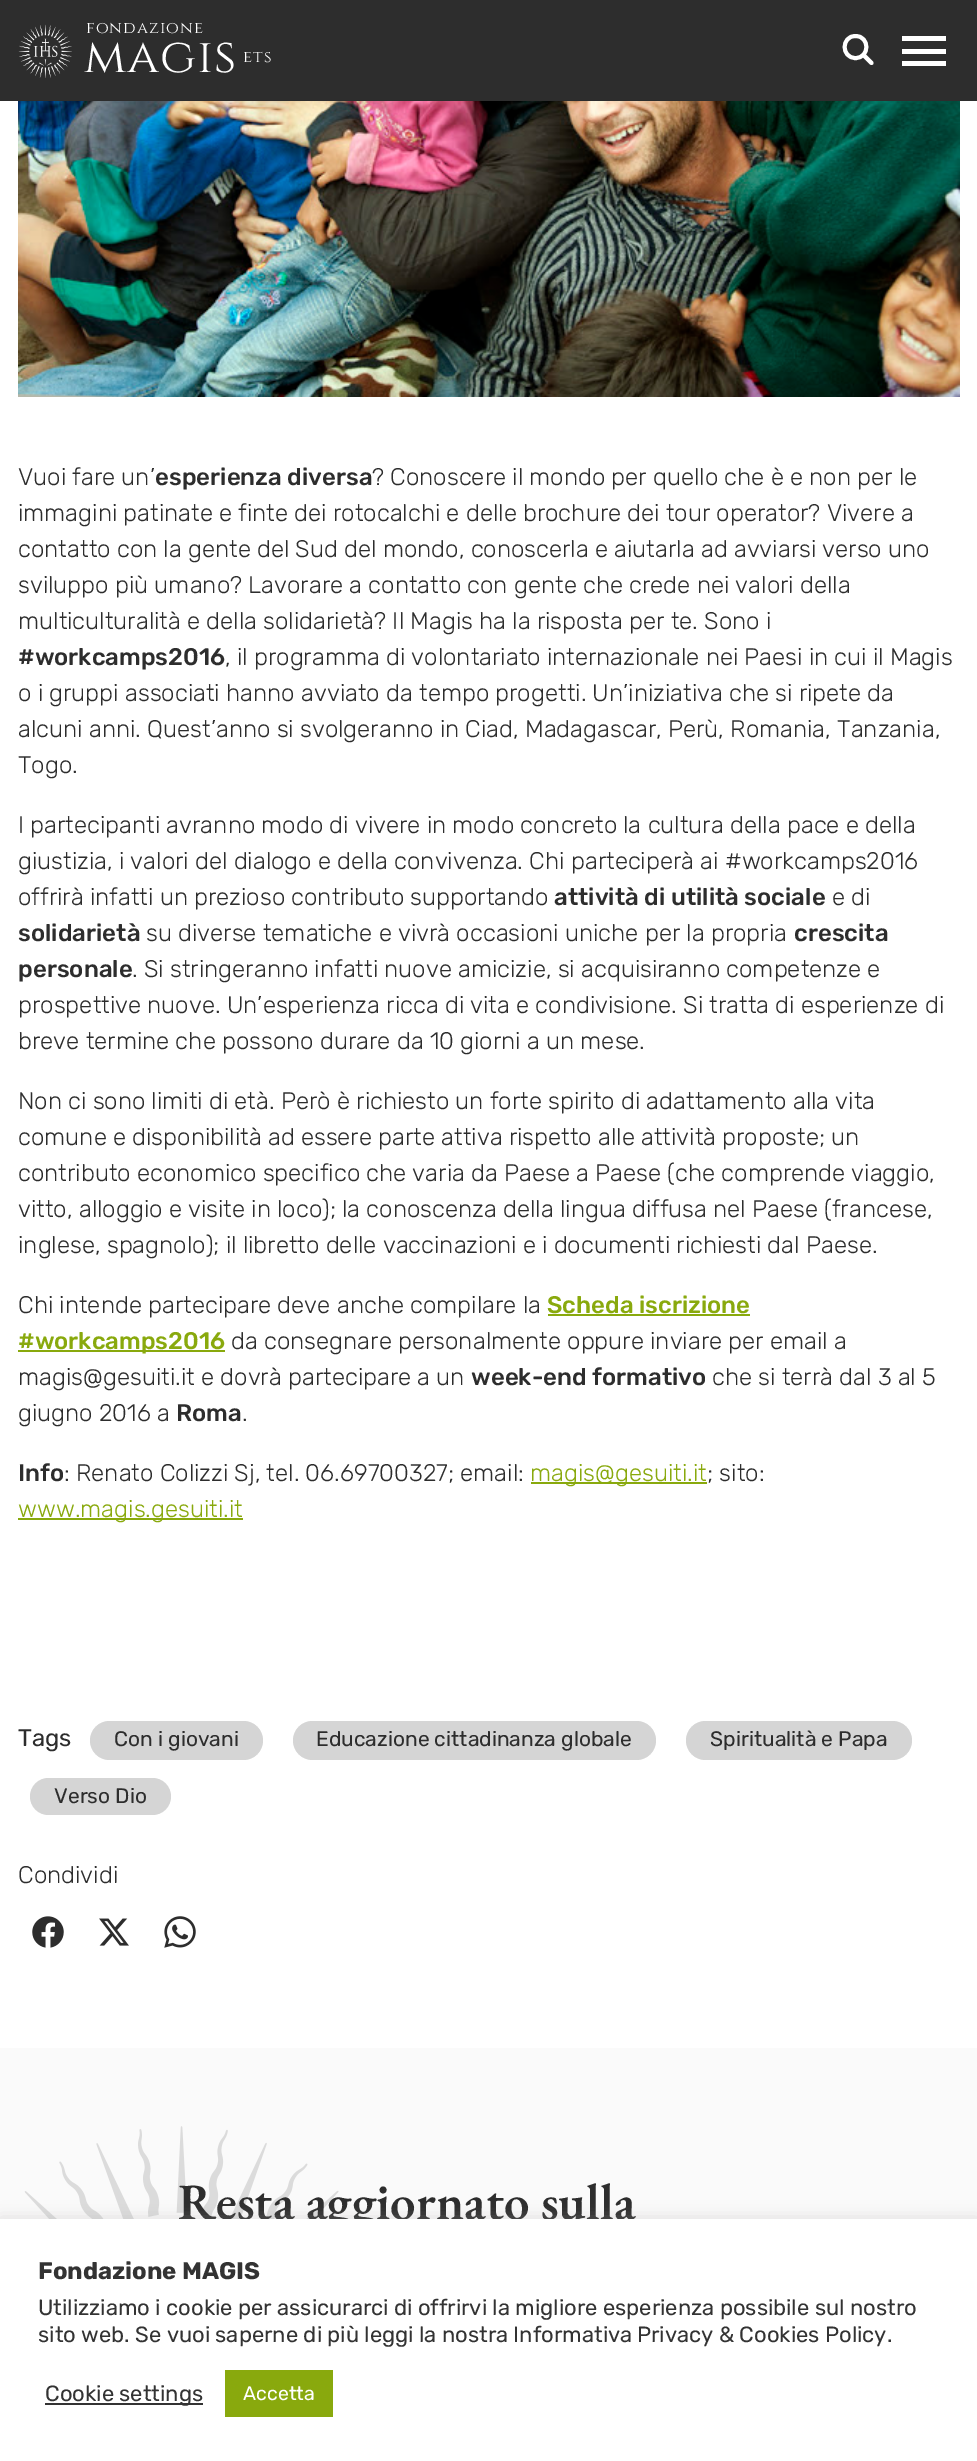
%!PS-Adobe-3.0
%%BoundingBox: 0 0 977 2461
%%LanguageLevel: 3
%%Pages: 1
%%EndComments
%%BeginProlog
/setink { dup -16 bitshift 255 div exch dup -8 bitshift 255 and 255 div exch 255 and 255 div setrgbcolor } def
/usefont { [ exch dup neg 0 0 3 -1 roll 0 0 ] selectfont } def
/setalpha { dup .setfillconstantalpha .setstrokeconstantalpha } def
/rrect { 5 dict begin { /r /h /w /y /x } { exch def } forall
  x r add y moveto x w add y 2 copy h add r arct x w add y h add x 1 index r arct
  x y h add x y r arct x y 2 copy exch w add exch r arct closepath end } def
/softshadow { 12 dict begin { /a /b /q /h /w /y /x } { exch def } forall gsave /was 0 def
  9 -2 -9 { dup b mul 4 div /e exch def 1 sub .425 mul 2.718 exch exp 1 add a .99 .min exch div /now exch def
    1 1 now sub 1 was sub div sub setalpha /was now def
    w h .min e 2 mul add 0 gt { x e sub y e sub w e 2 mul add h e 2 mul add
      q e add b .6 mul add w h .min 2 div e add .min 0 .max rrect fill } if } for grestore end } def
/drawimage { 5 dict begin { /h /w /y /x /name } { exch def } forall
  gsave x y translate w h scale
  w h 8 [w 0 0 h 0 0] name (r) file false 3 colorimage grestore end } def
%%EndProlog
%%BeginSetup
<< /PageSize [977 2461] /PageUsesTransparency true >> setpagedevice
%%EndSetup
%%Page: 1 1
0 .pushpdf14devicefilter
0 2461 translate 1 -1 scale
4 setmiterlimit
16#FFFFFF setink
0 0 977 2461 rectfill
16#2D2D2D setink
0 0 977 101 rectfill
(img1.raw) 18 24 54 54 drawimage
/Cinzel-Regular 16.5 usefont
16#FFFFFF setink
86 33 moveto 1 0 (fondazione) ashow
/Cinzel-Regular 48 usefont
84 72 moveto 1 0 (magis) ashow
/Cinzel-Regular 16.5 usefont
243 62 moveto 1 0 (ets) ashow
3.9 setlinewidth
855.5 36 moveto 841 36 841 58 855.5 58 curveto 870 58 870 36 855.5 36 curveto closepath stroke
1 setlinecap
864 55.5 moveto 871.5 63 lineto stroke
902 66 moveto 946 66 lineto 946 61 lineto 902 61 lineto closepath 902 54 moveto 946 54 lineto 946 49 lineto 902 49 lineto closepath 902 36 moveto 902 41 lineto 946 41 lineto 946 36 lineto closepath fill
(img2.raw) 18 101 942 296 drawimage
/Rubik-Light 24 usefont
16#2D2D2D setink
18 485 moveto (Vuoi fare un’) show
/Rubik-Medium 24 usefont
155 485 moveto (esperienza diversa) show
/Rubik-Light 24 usefont
[
    [(? Conoscere il mondo per quello che è e non per le) 372 485]
    [(immagini patinate e finte dei rotocalchi e delle brochure dei tour operator? Vivere a) 18 521]
    [(contatto con la gente del Sud del mondo, conoscerla e aiutarla ad avviarsi verso uno) 18 557]
    [(sviluppo più umano? Lavorare a contatto con gente che crede nei valori della) 18 593]
    [(multiculturalità e della solidarietà? Il Magis ha la risposta per te. Sono i) 18 629]
] { aload pop moveto show } forall
/Rubik-Medium 24 usefont
18 665 moveto (#workcamps2016) show
/Rubik-Light 24 usefont
[
    [(, il programma di volontariato internazionale nei Paesi in cui il Magis) 225 665]
    [(o i gruppi associati hanno avviato da tempo progetti. Un’iniziativa che si ripete da) 18 701]
    [(alcuni anni. Quest’anno si svolgeranno in Ciad, Madagascar, Perù, Romania, Tanzania,) 18 737]
    [(Togo.) 18 773]
    [(I partecipanti avranno modo di vivere in modo concreto la cultura della pace e della) 18 833]
    [(giustizia, i valori del dialogo e della convivenza. Chi parteciperà ai #workcamps2016) 18 869]
    [(offrirà infatti un prezioso contributo supportando) 18 905]
] { aload pop moveto show } forall
/Rubik-Medium 24 usefont
554 905 moveto (attività di utilità sociale) show
/Rubik-Light 24 usefont
832 905 moveto (e di) show
/Rubik-Medium 24 usefont
18 941 moveto (solidarietà) show
/Rubik-Light 24 usefont
146 941 moveto (su diverse tematiche e vivrà occasioni uniche per la propria) show
/Rubik-Medium 24 usefont
794 941 moveto (crescita) show
18 977 moveto (personale) show
/Rubik-Light 24 usefont
[
    [(. Si stringeranno infatti nuove amicizie, si acquisiranno competenze e) 132 977]
    [(prospettive nuove. Un’esperienza ricca di vita e condivisione. Si tratta di esperienze di) 18 1013]
    [(breve termine che possono durare da 10 giorni a un mese.) 18 1049]
    [(Non ci sono limiti di età. Però è richiesto un forte spirito di adattamento alla vita) 18 1109]
    [(comune e disponibilità ad essere parte attiva rispetto alle attività proposte; un) 18 1145]
    [(contributo economico specifico che varia da Paese a Paese \(che comprende viaggio,) 18 1181]
    [(vitto, alloggio e visite in loco\); la conoscenza della lingua diffusa nel Paese \(francese,) 18 1217]
    [(inglese, spagnolo\); il libretto delle vaccinazioni e i documenti richiesti dal Paese.) 18 1253]
    [(Chi intende partecipare deve anche compilare la) 18 1313]
] { aload pop moveto show } forall
/Rubik-Medium 24 usefont
16#89A90D setink
547 1313 moveto (Scheda iscrizione) show
548 1314 202 2 rectfill
18 1350 207 2 rectfill
18 1349 moveto (#workcamps2016) show
/Rubik-Light 24 usefont
16#2D2D2D setink
231 1349 moveto (da consegnare personalmente oppure inviare per email a) show
18 1385 moveto (magis@gesuiti.it e dovrà partecipare a un) show
/Rubik-Medium 24 usefont
471 1385 moveto (week-end formativo) show
/Rubik-Light 24 usefont
712 1385 moveto (che si terrà dal 3 al 5) show
18 1421 moveto (giugno 2016 a) show
/Rubik-Medium 24 usefont
176 1421 moveto (Roma) show
/Rubik-Light 24 usefont
242 1421 moveto (.) show
/Rubik-Medium 24 usefont
18 1481 moveto (Info) show
/Rubik-Light 24 usefont
64 1481 moveto (: Renato Colizzi Sj, tel. 06.69700327; email:) show
16#89A90D setink
531 1482 176 2 rectfill
530 1481 moveto (magis@gesuiti.it) show
16#2D2D2D setink
707 1481 moveto (; sito:) show
16#89A90D setink
18 1518 225 2 rectfill
18 1517 moveto (www.magis.gesuiti.it) show
/Rubik-Regular 24 usefont
16#2D2D2D setink
18 1746 moveto (Tags) show
16#D5D5D5 setink
90 1721 173 39 19.5 rrect fill
/Rubik-Regular 21 usefont
16#2D2D2D setink
114 1746 moveto (Con i giovani) show
16#D5D5D5 setink
293 1721 363 39 19.5 rrect fill
16#2D2D2D setink
316 1746 moveto (Educazione cittadinanza globale) show
16#D5D5D5 setink
686 1721 226 39 19.5 rrect fill
16#2D2D2D setink
710 1746 moveto (Spiritualità e Papa) show
16#D5D5D5 setink
30 1778 141 37 18.5 rrect fill
16#2D2D2D setink
54 1803 moveto (Verso Dio) show
/Rubik-Light 24 usefont
18 1883 moveto (Condividi) show
(img3.raw) 32 1916 32 32 drawimage
(img4.raw) 99 1918 30 28 drawimage
(img5.raw) 164 1916 32 32 drawimage
16#FAFAFA setink
0 2048 977 171 rectfill
(img6.raw) 24 2126 315 93 drawimage
/EBGaramond-SemiBold 51 usefont
16#2D2D2D setink
178 2219 moveto (Resta aggiornato sulla) show
16#ACABAB setink
0 2217 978 243 0 7.5 0.3 softshadow
16#FFFFFF setink
0 2219 977 242 rectfill
/Rubik-Bold 24 usefont
16#333333 setink
38 2279 moveto (Fondazione MAGIS) show
/Rubik-Regular 22 usefont
[
    [(Utilizziamo i cookie per assicurarci di offrirvi la migliore esperienza possibile sul nostro) 38 2315]
    [(sito web. Se vuoi saperne di più leggi la nostra Informativa) 38 2342]
    [(Privacy & Cookies Policy.) 637 2342]
] { aload pop moveto show } forall
45 2403 158 2 rectfill
45 2401 moveto (Cookie settings) show
16#89A90D setink
225 2370 108 47 rectfill
/Rubik-Regular 19.5 usefont
16#FFFFFF setink
243 2400 moveto (Accetta) show
.poppdf14devicefilter showpage
%%EOF
